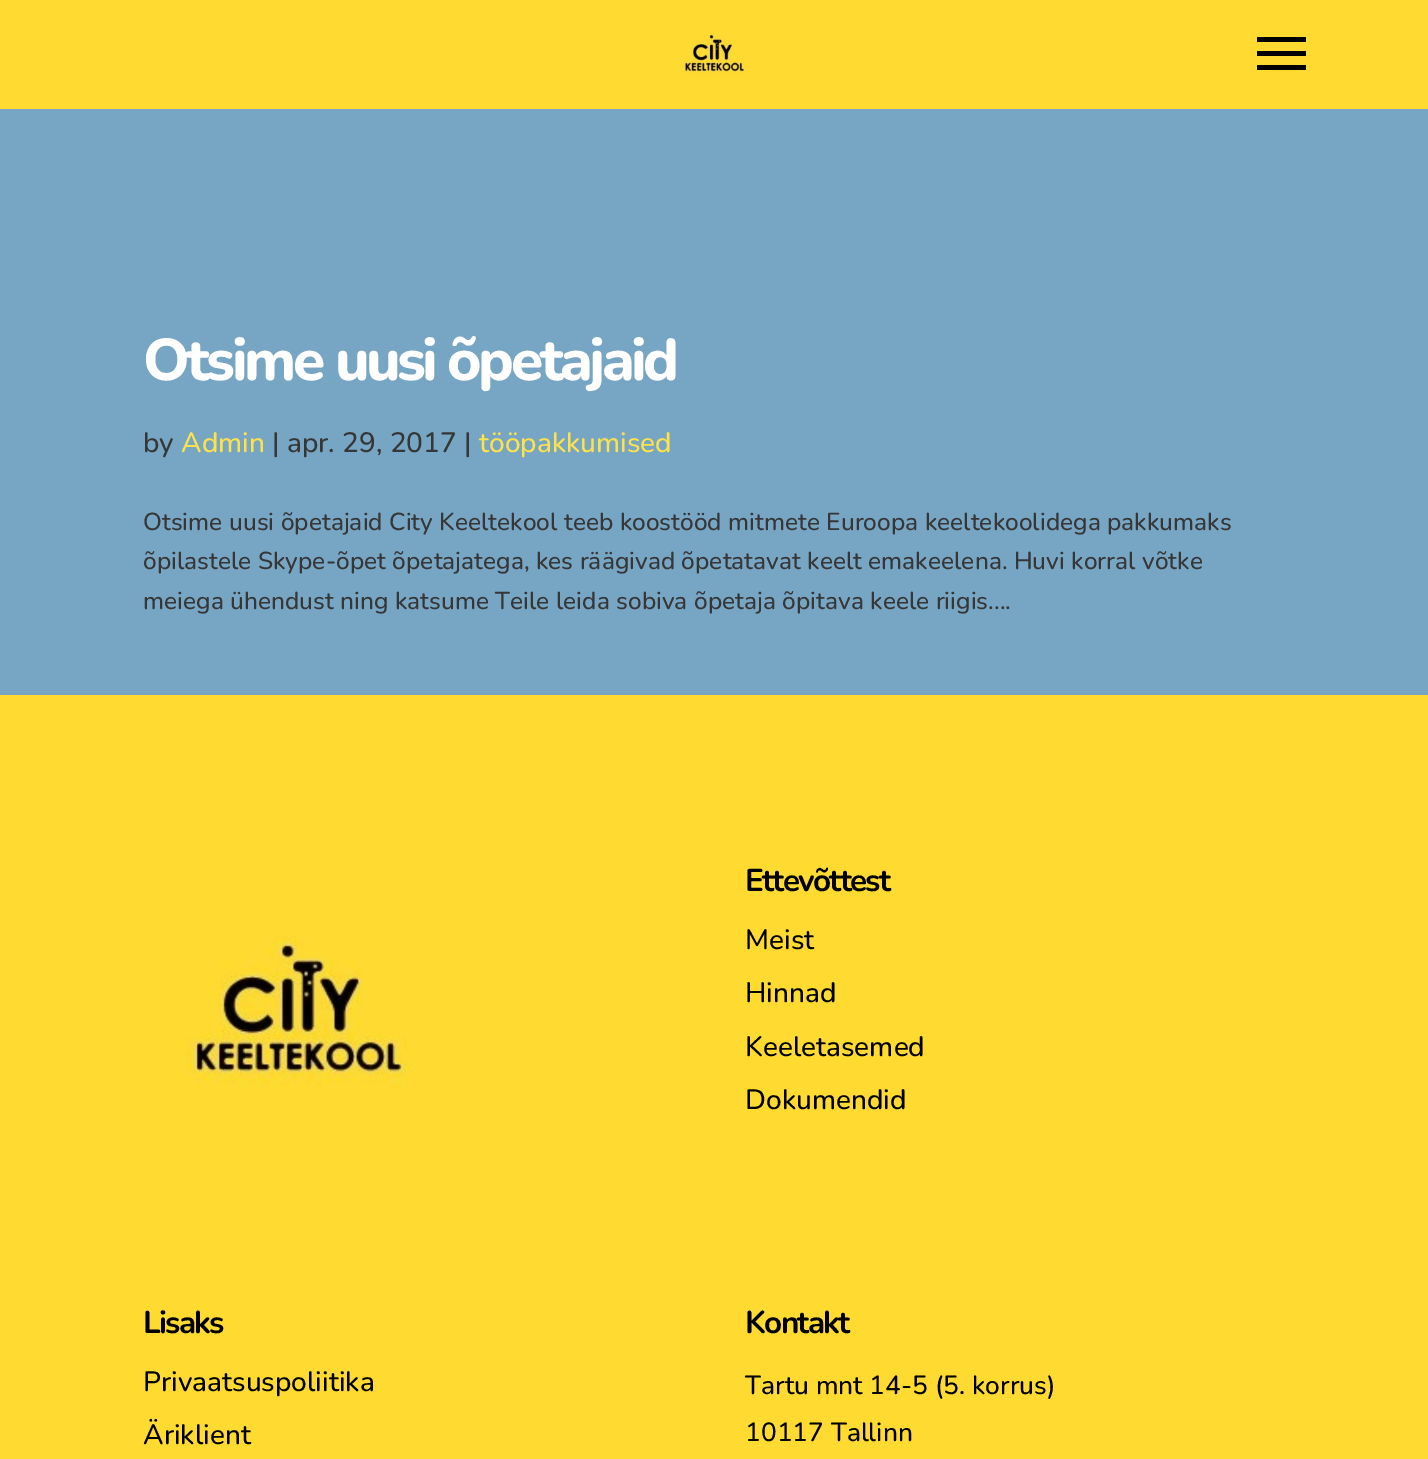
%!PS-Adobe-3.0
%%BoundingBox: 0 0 1428 1459
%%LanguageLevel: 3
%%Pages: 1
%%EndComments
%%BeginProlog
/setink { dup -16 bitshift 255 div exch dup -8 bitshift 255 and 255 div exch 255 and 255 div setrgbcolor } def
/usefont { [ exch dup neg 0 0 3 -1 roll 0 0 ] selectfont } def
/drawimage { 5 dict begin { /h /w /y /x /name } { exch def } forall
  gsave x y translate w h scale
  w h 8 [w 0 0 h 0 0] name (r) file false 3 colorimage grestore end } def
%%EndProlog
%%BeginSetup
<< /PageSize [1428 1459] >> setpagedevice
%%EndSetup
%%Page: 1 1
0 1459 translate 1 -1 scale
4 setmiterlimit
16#77A6C4 setink
0 0 1428 1459 rectfill
16#FFDA31 setink
0 0 1428 109 rectfill
(img1.raw) 681 34 65 42 drawimage
[
    [1257 51 49 5 16#000000]
    [1257 37 49 5 16#000000]
    [1257 65 49 5 16#000000]
] { aload pop setink rectfill } forall
/Nunito-ExtraBold 58.75 usefont
16#FFFFFF setink
143 380 moveto -3.5 0 (Otsime uusi õpetajaid) ashow
/Nunito-Medium 28 usefont
16#363636 setink
143 452 moveto (by) show
16#FFE24A setink
181 452 moveto (Admin) show
16#363636 setink
272 452 moveto (| apr. 29, 2017 |) show
16#FFE24A setink
479 452 moveto (tööpakkumised) show
/Nunito-Medium 24.5 usefont
16#363636 setink
[
    [(Otsime uusi õpetajaid City Keeltekool teeb koostööd mitmete Euroopa keeltekoolidega pakkumaks) 143 530]
    [(õpilastele Skype-õpet õpetajatega, kes räägivad õpetatavat keelt emakeelena. Huvi korral võtke) 143 569]
    [(meiega ühendust ning katsume Teile leida sobiva õpetaja õpitava keele riigis....) 143 609]
] { aload pop moveto show } forall
16#FFDA31 setink
0 695 1428 764 rectfill
(img2.raw) 182 936 229 153 drawimage
/Nunito-Bold 31.5 usefont
16#000000 setink
745 891 moveto -1.75 0 (Ettevõttest) ashow
/Nunito-Medium 28 usefont
[
    [(Meist) 745 949]
    [(Hinnad) 745 1002]
    [(Keeletasemed) 745 1056]
    [(Dokumendid) 745 1109]
] { aload pop moveto show } forall
/Nunito-Bold 31.5 usefont
143 1333 moveto -1.75 0 (Lisaks) ashow
/Nunito-Medium 28 usefont
143 1391 moveto (Privaatsuspoliitika) show
143 1444 moveto (Äriklient) show
/Nunito-Bold 31.5 usefont
745 1333 moveto -1.75 0 (Kontakt) ashow
/Nunito-Medium 26.25 usefont
745 1394 moveto (Tartu mnt 14-5 \(5. korrus\)) show
745 1441 moveto (10117 Tallinn) show
showpage
%%EOF
